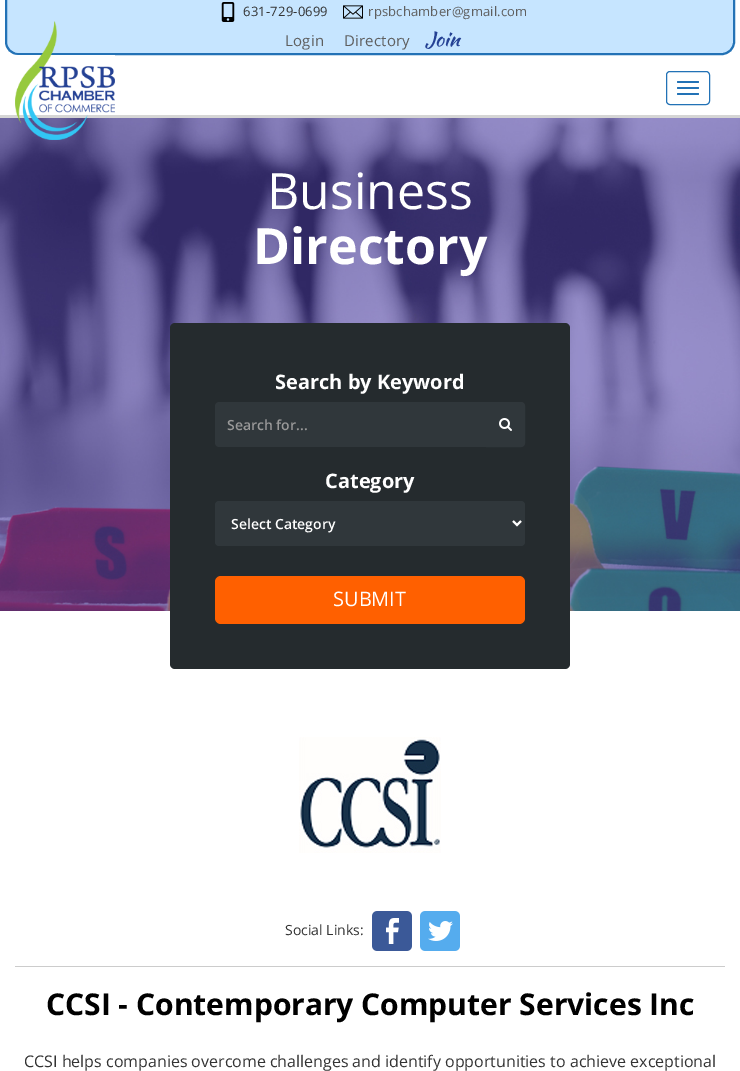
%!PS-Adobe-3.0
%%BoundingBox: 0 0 740 1071
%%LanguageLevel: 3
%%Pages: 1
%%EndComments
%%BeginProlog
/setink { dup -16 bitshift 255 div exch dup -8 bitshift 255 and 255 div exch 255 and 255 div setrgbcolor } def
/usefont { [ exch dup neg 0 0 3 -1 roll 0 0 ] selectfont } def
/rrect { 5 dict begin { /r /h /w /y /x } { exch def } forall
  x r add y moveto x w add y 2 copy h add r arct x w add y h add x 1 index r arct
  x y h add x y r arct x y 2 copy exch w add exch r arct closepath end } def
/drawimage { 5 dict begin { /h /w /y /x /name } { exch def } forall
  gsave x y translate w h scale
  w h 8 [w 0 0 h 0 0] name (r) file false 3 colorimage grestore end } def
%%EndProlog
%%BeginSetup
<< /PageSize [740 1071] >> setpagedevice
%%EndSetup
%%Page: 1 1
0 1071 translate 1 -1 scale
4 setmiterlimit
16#FFFFFF setink
0 0 740 1071 rectfill
16#C6E5FF setink
6 -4 moveto 734 -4 lineto 734 42 lineto 734 48.5 728.5 54 722 54 curveto 18 54 lineto 11.5 54 6 48.5 6 42 curveto closepath gsave fill grestore
16#2372B6 setink
2 setlinewidth
stroke
(img1.raw) 221 2 14 20 drawimage
/OpenSans-Regular 13 usefont
16#333333 setink
243 16 moveto 0.2 0 (631-729-0699) ashow
(img2.raw) 343 5 20 14 drawimage
16#5F5F5F setink
368 16 moveto 0.2 0 (rpsbchamber@gmail.com) ashow
/OpenSans-Regular 15 usefont
285 46 moveto 0.2 0 (Login) ashow
344 46 moveto 0.2 0 (Directory) ashow
/KaushanScript-Regular 20 usefont
16#244194 setink
425 46 moveto 0.2 0 (Join) ashow
16#D5D5D5 setink
0 115 740 3 rectfill
(img4.raw) 0 118 740 493 drawimage
(img3.raw) 15 21 100 119 drawimage
16#2272B6 setink
1 setlinewidth
666.5 71.5 43 33 3.5 rrect stroke
677 81 22 2 1 rrect fill
677 87 22 2 1 rrect fill
677 93 22 2 1 rrect fill
/OpenSans-Regular 50 usefont
16#FFFFFF setink
267 209 moveto (Business) show
/OpenSans-Bold 50 usefont
253 264 moveto (Directory) show
16#252B2E setink
170 323 400 346 5 rrect fill
/OpenSans-Bold 20 usefont
16#FFFFFF setink
275 389 moveto (Search by Keyword) show
16#30373B setink
219 402 moveto 486 402 lineto 486 447 lineto 219 447 lineto 217 447 215 445 215 443 curveto 215 406 lineto 215 404 217 402 219 402 curveto closepath fill
/OpenSans-SemiBold 14 usefont
16#999999 setink
227 430 moveto (Search for...) show
16#30373B setink
486.5 402.5 moveto 521 402.5 lineto 523 402.5 524.5 404 524.5 406 curveto 524.5 443 lineto 524.5 445 523 446.5 521 446.5 curveto 486.5 446.5 lineto closepath gsave fill grestore
stroke
(img5.raw) 499 418 13 13 drawimage
/OpenSans-Bold 20 usefont
16#FFFFFF setink
325 488 moveto (Category) show
16#30373B setink
215 501 310 45 4 rrect fill
16#FFFFFF setink
2 setlinewidth
513 521 moveto 517 525 lineto 521 521 lineto stroke
/OpenSans-SemiBold 14 usefont
231 529 moveto (Select Category) show
16#FF6000 setink
215 576 310 48 6 rrect fill
/OpenSans-Regular 20 usefont
16#FFFFFF setink
333 606 moveto (SUBMIT) show
16#CCCCCC setink
15 966 710 1 rectfill
(img6.raw) 299 737 142 116 drawimage
/OpenSans-Regular 14 usefont
16#333333 setink
285 935 moveto (Social Links:) show
(img7.raw) 372 911 40 40 drawimage
(img8.raw) 420 911 40 40 drawimage
/OpenSans-Bold 30 usefont
16#000000 setink
46 1015 moveto (CCSI - Contemporary Computer Services Inc) show
/OpenSans-Regular 16 usefont
16#333333 setink
24 1067 moveto (CCSI helps companies overcome challenges and identify opportunities to achieve exceptional) show
showpage
%%EOF
